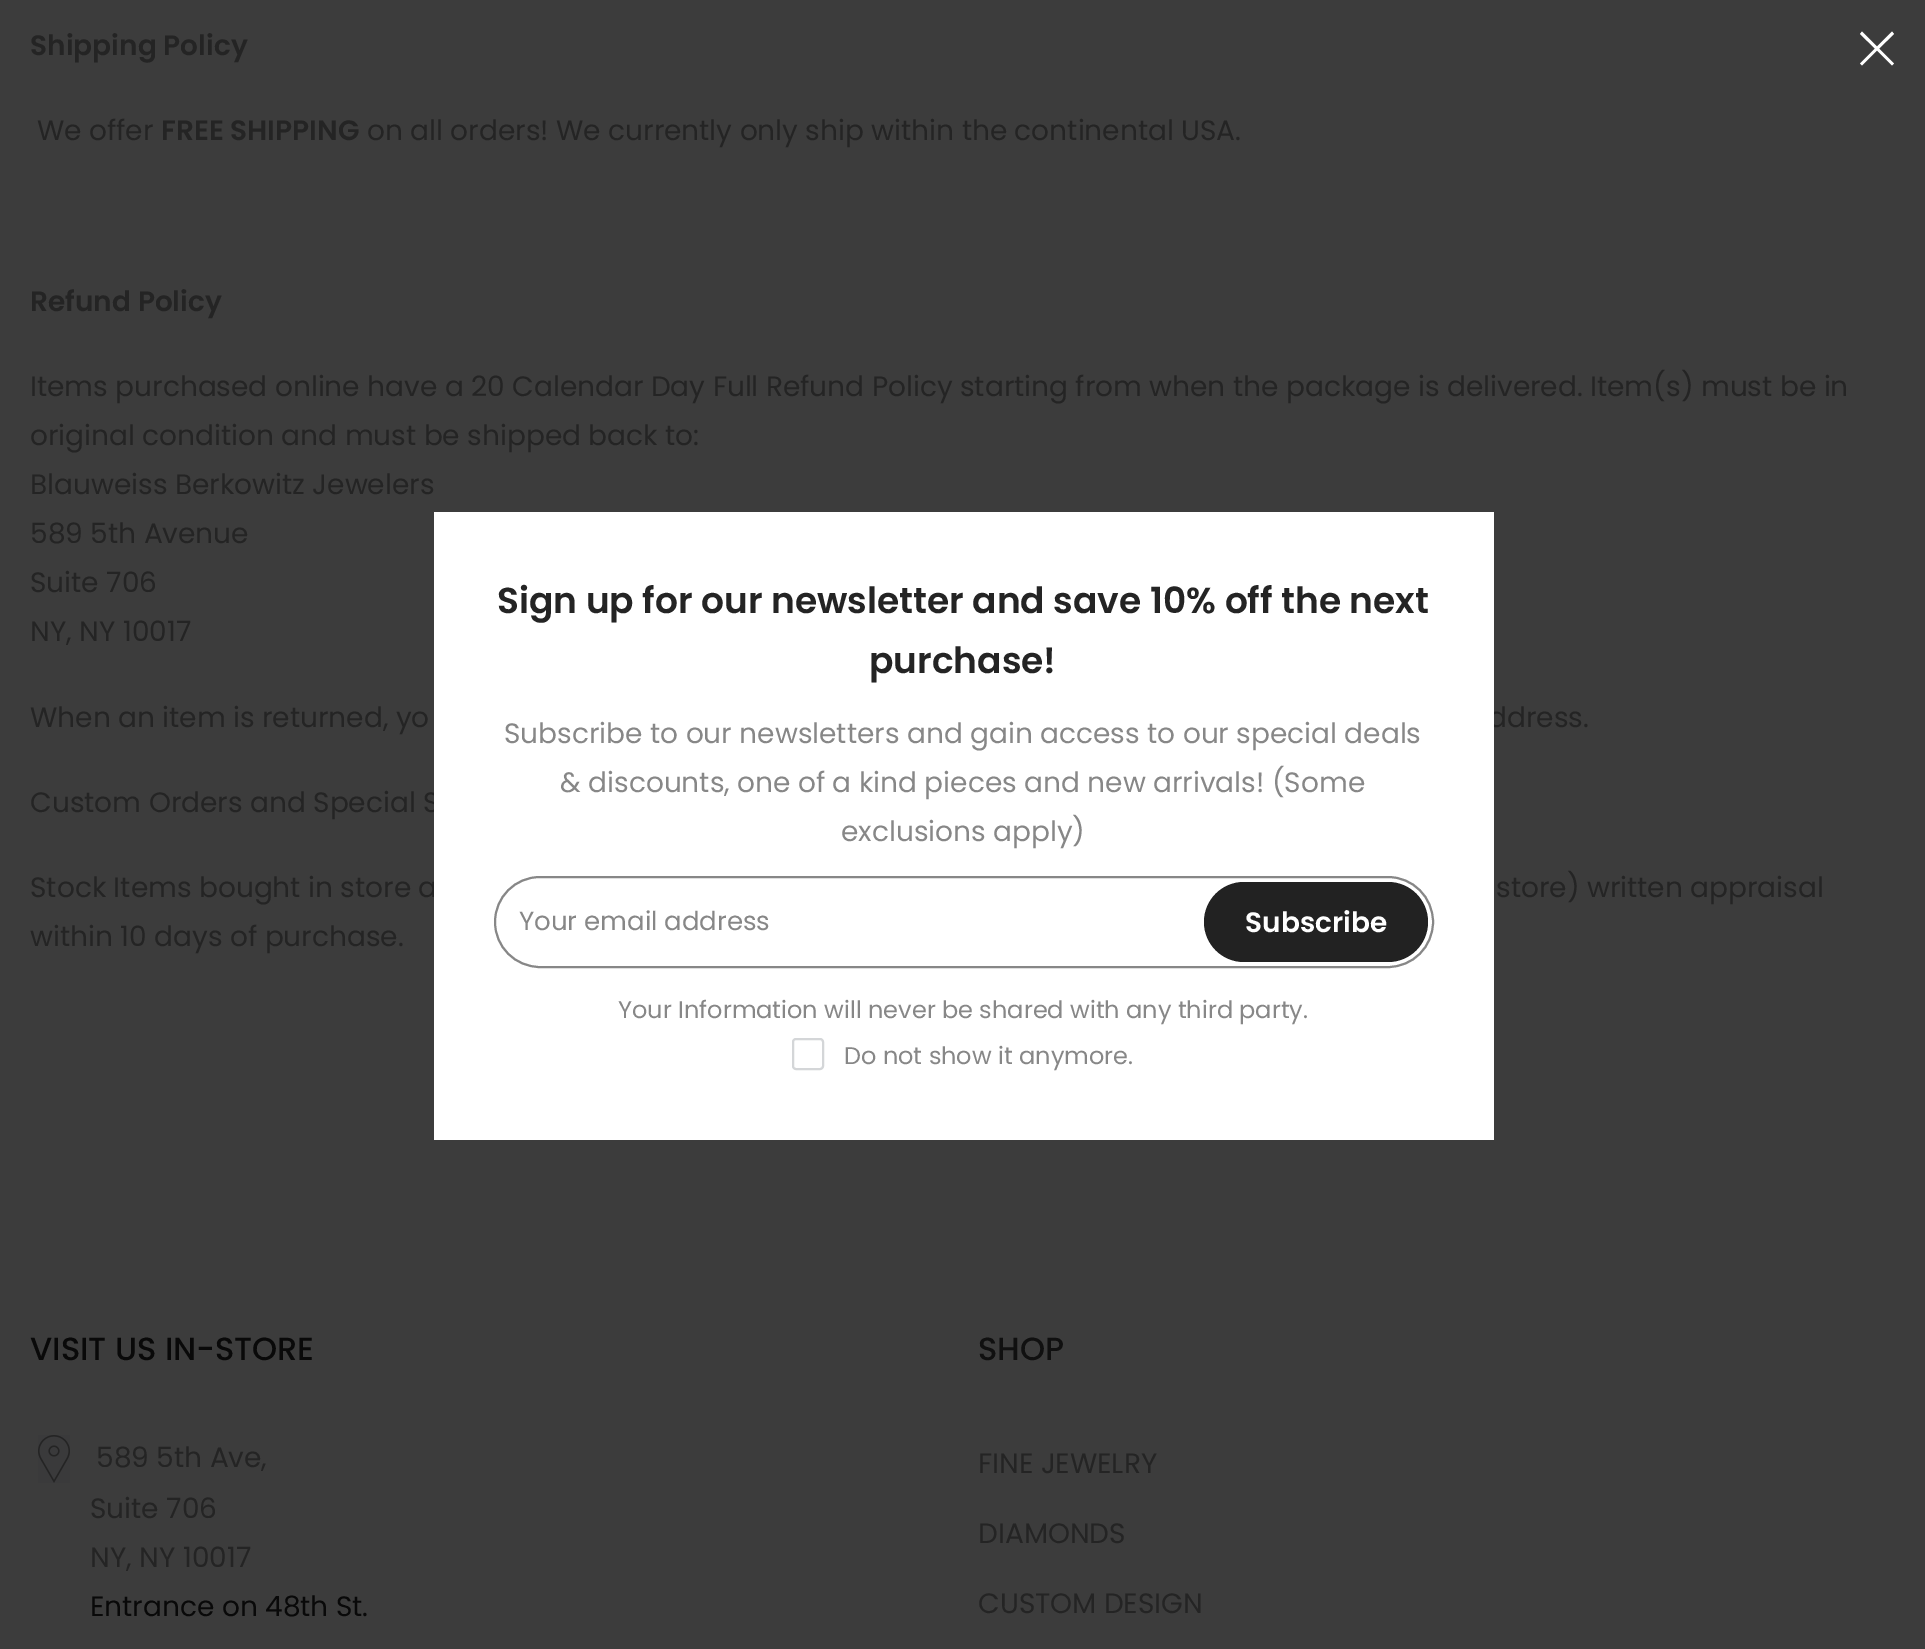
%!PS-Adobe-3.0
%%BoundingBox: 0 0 1925 1649
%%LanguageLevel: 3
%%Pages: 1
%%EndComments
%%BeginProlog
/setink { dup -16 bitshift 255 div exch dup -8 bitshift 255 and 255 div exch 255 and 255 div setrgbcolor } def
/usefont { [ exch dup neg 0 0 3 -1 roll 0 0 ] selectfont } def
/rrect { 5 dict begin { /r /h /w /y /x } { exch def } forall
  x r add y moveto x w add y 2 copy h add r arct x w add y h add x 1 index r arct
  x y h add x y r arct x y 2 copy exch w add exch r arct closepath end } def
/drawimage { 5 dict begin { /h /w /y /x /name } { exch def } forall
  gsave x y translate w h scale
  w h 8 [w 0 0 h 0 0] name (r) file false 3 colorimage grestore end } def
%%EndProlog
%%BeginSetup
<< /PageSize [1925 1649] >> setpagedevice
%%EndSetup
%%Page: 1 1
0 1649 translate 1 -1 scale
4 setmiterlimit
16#3C3C3C setink
0 0 1925 1649 rectfill
/Poppins-SemiBold 28 usefont
16#242424 setink
30 55 moveto (Shipping Policy) show
/Poppins-Regular 28 usefont
37 140 moveto (We offer) show
/Poppins-SemiBold 28 usefont
161 140 moveto (FREE SHIPPING) show
/Poppins-Regular 28 usefont
367 140 moveto (on all orders! We currently only ship within the continental USA.) show
/Poppins-SemiBold 28 usefont
30 311 moveto (Refund Policy) show
/Poppins-Regular 28 usefont
[
    [(Items purchased online have a 20 Calendar Day Full Refund Policy starting from when the package is delivered. Item\(s\) must be in) 30 396]
    [(original condition and must be shipped back to:) 30 445]
    [(Blauweiss Berkowitz Jewelers) 30 494]
    [(589 5th Avenue) 30 543]
    [(Suite 706) 30 592]
    [(NY, NY 10017) 30 641]
    [(When an item is returned, yo) 30 727]
    [(ddress.) 1488 727]
    [(Custom Orders and Special S) 30 812]
    [(Stock Items bought in store a) 30 897]
    [(store\) written appraisal) 1496 897]
    [(within 10 days of purchase.) 30 946]
] { aload pop moveto show } forall
/Poppins-Medium 32 usefont
16#090909 setink
30 1360 moveto (VISIT US IN-STORE) show
(img1.raw) 38 1435 32 48 drawimage
/Poppins-Regular 28 usefont
16#242424 setink
[
    [(589 5th Ave,) 96 1467]
    [(Suite 706) 90 1518]
    [(NY, NY 10017) 90 1567]
] { aload pop moveto show } forall
16#090909 setink
90 1616 moveto (Entrance on 48th St.) show
/Poppins-Medium 32 usefont
16#101010 setink
978 1360 moveto (SHOP) show
/Poppins-Regular 28 usefont
16#242424 setink
[
    [(FINE JEWELRY) 978 1473]
    [(DIAMONDS) 978 1543]
    [(CUSTOM DESIGN) 978 1613]
] { aload pop moveto show } forall
16#FFFFFF setink
434 512 1060 628 rectfill
1862 31.5 moveto 1860 34 lineto 1875 48.5 lineto 1860 63.5 lineto 1862 65.5 lineto 1877 50.5 lineto 1892 65.5 lineto 1894 63.5 lineto 1879 48.5 lineto 1894 34 lineto 1892 31.5 lineto 1877 46.5 lineto closepath fill
/Poppins-SemiBold 36 usefont
16#242424 setink
497 613 moveto (Sign up for our newsletter and save 10% off the next) show
869 673 moveto (purchase!) show
/Poppins-Regular 28 usefont
16#878787 setink
[
    [(Subscribe to our newsletters and gain access to our special deals) 504 743]
    [(& discounts, one of a kind pieces and new arrivals! \(Some) 560 792]
    [(exclusions apply\)) 841 841]
] { aload pop moveto show } forall
2 setlinewidth
495 877 938 90 45 rrect stroke
/Poppins-Regular 26 usefont
519 930 moveto (Your email address) show
16#222222 setink
1204 882 224 80 40 rrect fill
/Poppins-SemiBold 28 usefont
16#FFFFFF setink
1245 932 moveto (Subscribe) show
/Poppins-Regular 24 usefont
16#878787 setink
618 1018 moveto (Your Information will never be shared with any third party.) show
16#D4D6D8 setink
793 1039 30 30 3 rrect stroke
16#878787 setink
844 1064 moveto (Do not show it anymore.) show
showpage
%%EOF
